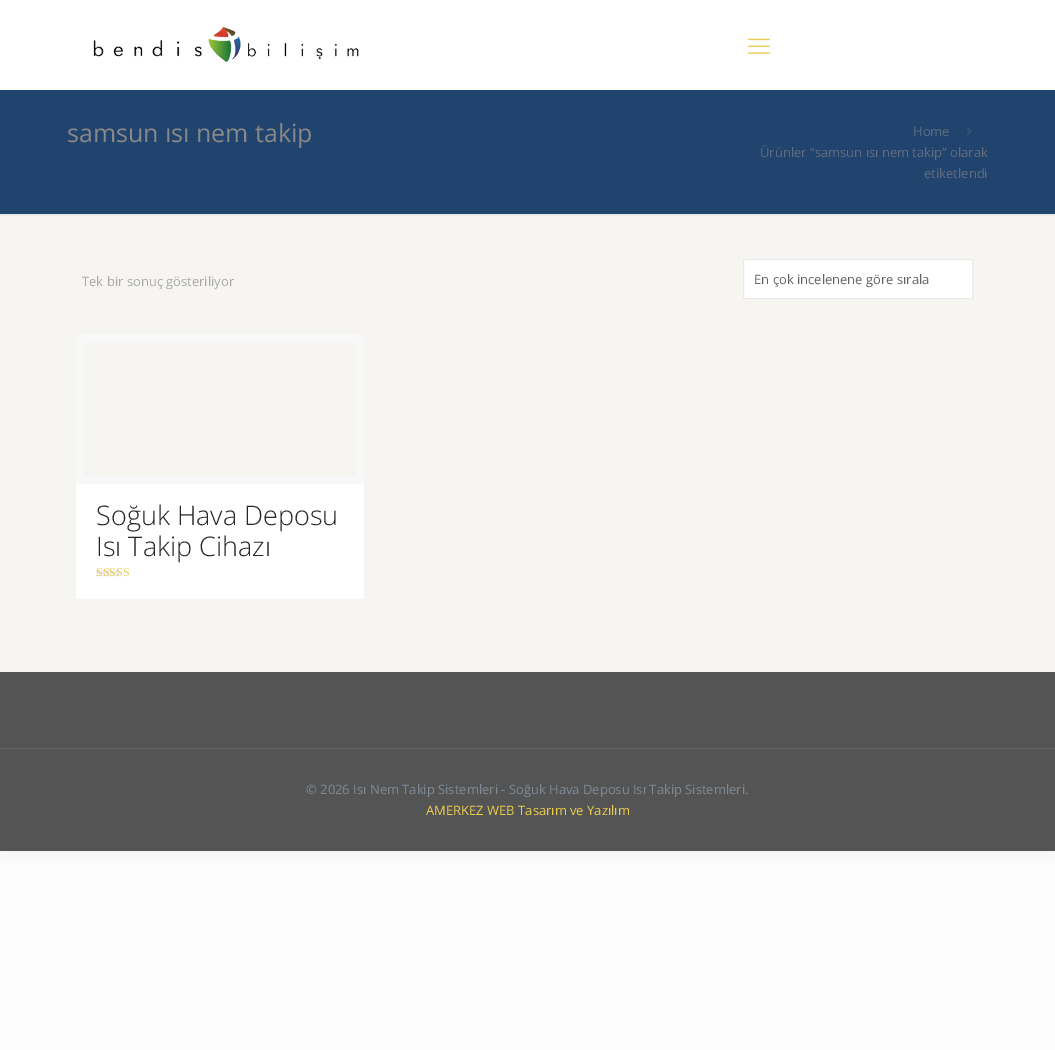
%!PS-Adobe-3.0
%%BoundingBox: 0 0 1055 1050
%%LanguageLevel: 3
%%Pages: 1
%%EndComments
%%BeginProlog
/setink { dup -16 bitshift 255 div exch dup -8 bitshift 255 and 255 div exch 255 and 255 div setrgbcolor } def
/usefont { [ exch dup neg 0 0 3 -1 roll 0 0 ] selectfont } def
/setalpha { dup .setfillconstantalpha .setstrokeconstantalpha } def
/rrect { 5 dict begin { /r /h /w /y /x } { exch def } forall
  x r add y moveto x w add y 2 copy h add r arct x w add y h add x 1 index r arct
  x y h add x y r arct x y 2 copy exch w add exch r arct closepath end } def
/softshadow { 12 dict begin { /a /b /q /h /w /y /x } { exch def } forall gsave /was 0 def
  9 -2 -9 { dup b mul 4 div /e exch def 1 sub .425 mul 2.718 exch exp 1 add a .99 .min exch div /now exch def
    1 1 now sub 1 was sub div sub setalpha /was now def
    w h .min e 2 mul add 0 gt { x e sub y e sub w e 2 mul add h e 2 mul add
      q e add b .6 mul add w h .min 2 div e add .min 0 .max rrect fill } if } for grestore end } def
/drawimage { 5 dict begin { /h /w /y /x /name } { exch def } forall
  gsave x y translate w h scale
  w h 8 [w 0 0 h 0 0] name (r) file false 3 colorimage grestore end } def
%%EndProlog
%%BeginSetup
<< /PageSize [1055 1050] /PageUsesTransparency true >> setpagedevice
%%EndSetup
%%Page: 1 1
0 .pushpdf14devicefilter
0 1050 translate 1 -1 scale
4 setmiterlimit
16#FCFCFC setink
0 0 1055 1050 rectfill
16#000000 setink
0 0 1055 851 0 7.5 0.06 softshadow
[
    [0 214 1055 458 16#F7F5F2]
    [0 90 1055 124 16#21446E]
    [0 0 1055 90 16#FFFFFF]
] { aload pop setink rectfill } forall
(img1.raw) 93 27 266 35 drawimage
(img2.raw) 748 38 22 16 drawimage
/OpenSans-Regular 25 usefont
16#888888 setink
67 142 moveto (samsun ısı nem takip) show
/OpenSans-Regular 13 usefont
16#5F6D7E setink
913 136 moveto (Home) show
(img3.raw) 967 127 5 8 drawimage
760 157 moveto (Ürünler “samsun ısı nem takip” olarak) show
924 178 moveto (etiketlendi) show
(img4.raw) 0 214 1055 2 drawimage
16#A8A8A8 setink
82 286 moveto (Tek bir sonuç gösteriliyor) show
16#FFFFFF setink
743.5 259.5 moveto 972.5 259.5 lineto 972.5 298.5 lineto 743.5 298.5 lineto closepath gsave fill grestore
16#EBEBEB setink
stroke
16#626262 setink
754 284 moveto (En çok incelenene göre sırala) show
16#F8F8F8 setink
8 setlinewidth
80 338 280 142 rectstroke
16#FFFFFF setink
76 484 288 115 rectfill
/OpenSans-Light 27 usefont
16#282727 setink
96 525 moveto (Soğuk Hava Deposu) show
96 556 moveto (Isı Takip Cihazı) show
/LiberationSerif-Regular 12 usefont
16#D3CED2 setink
96 576 moveto (sssss) show
16#EACC4E setink
96 576 moveto (SSSSS) show
16#545454 setink
0 672 1055 179 rectfill
16#656565 setink
0 748 1055 1 rectfill
/OpenSans-Regular 13 usefont
16#7E8993 setink
306 794 moveto (© 2026 Isı Nem Takip Sistemleri - Soğuk Hava Deposu Isı Takip Sistemleri.) show
16#EACC4E setink
426 815 moveto (AMERKEZ WEB Tasarım ve Yazılım) show
.poppdf14devicefilter showpage
%%EOF
